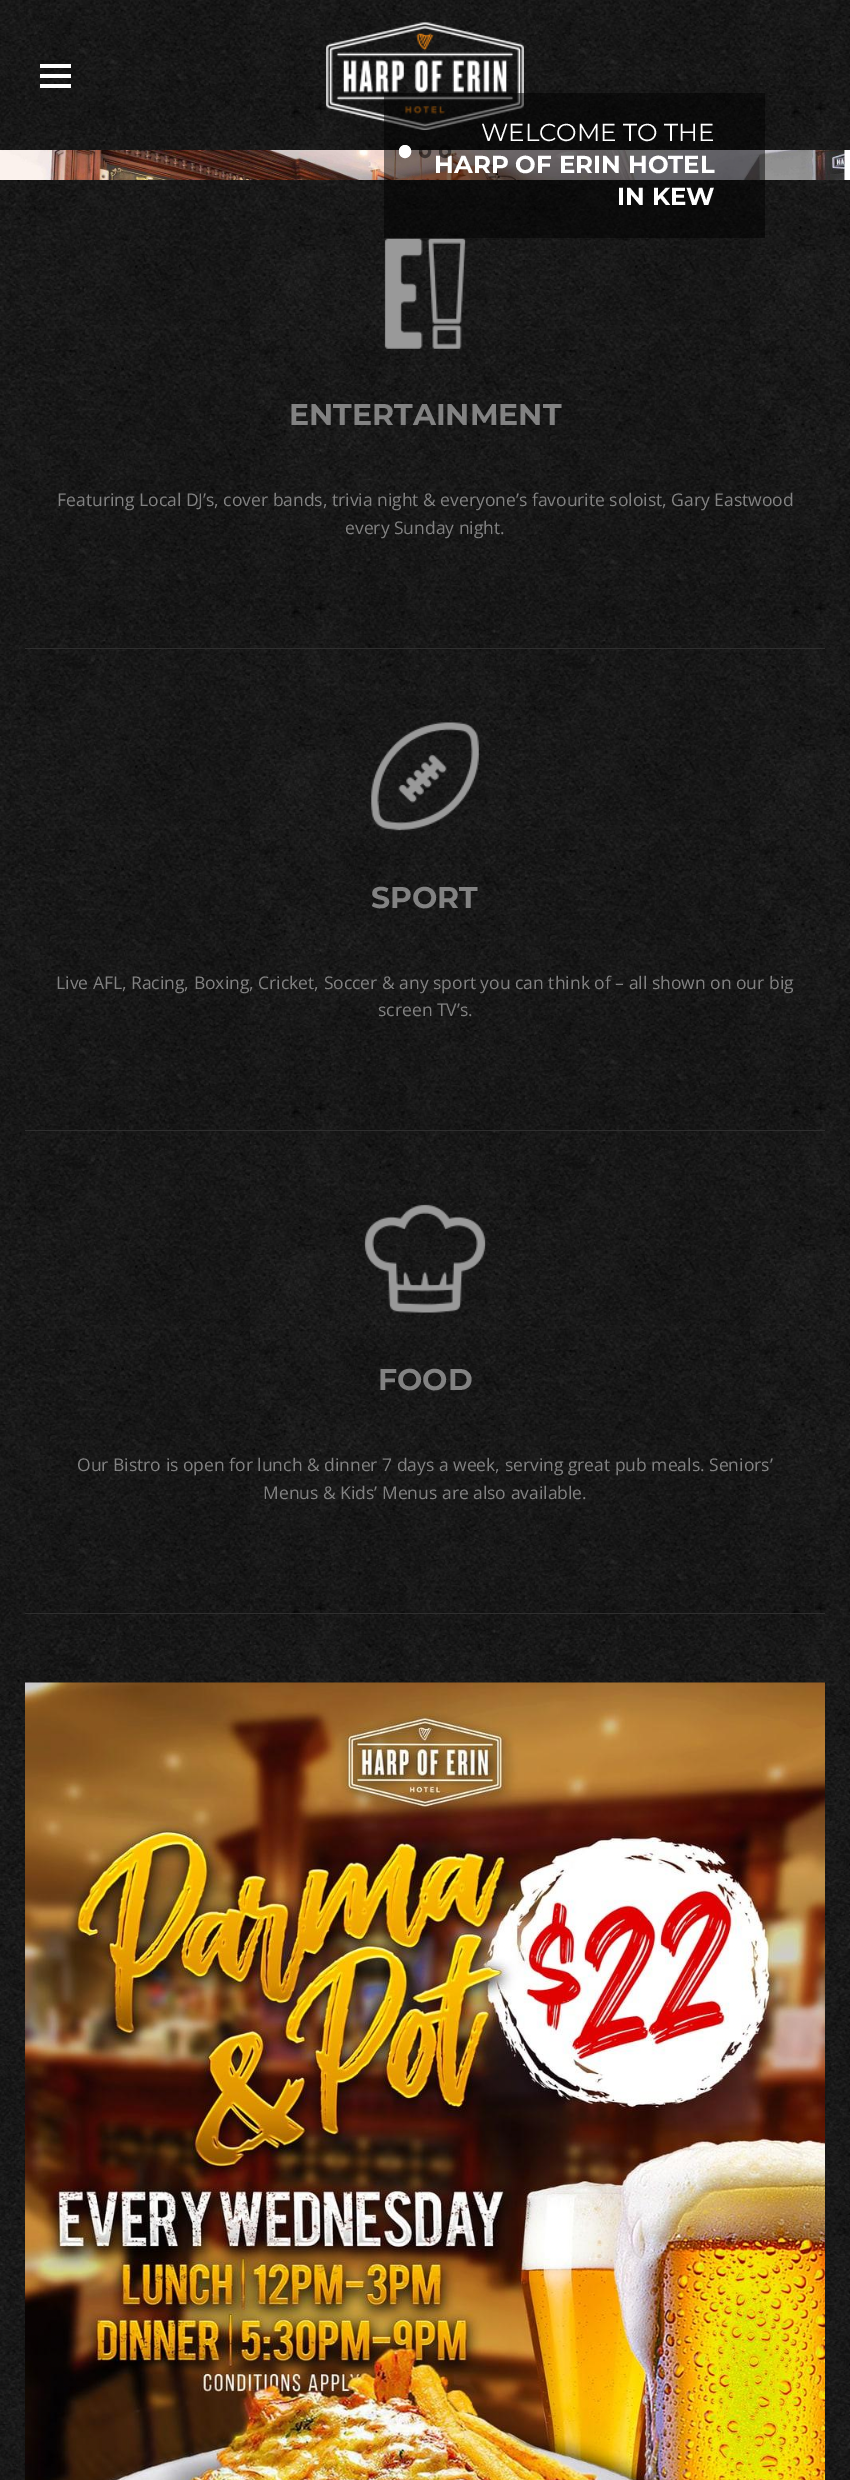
%!PS-Adobe-3.0
%%BoundingBox: 0 0 850 2480
%%LanguageLevel: 3
%%Pages: 1
%%EndComments
%%BeginProlog
/setink { dup -16 bitshift 255 div exch dup -8 bitshift 255 and 255 div exch 255 and 255 div setrgbcolor } def
/usefont { [ exch dup neg 0 0 3 -1 roll 0 0 ] selectfont } def
/setalpha { dup .setfillconstantalpha .setstrokeconstantalpha } def
/rrect { 5 dict begin { /r /h /w /y /x } { exch def } forall
  x r add y moveto x w add y 2 copy h add r arct x w add y h add x 1 index r arct
  x y h add x y r arct x y 2 copy exch w add exch r arct closepath end } def
/drawimage { 5 dict begin { /h /w /y /x /name } { exch def } forall
  gsave x y translate w h scale
  w h 8 [w 0 0 h 0 0] name (r) file false 3 colorimage grestore end } def
%%EndProlog
%%BeginSetup
<< /PageSize [850 2480] /PageUsesTransparency true >> setpagedevice
%%EndSetup
%%Page: 1 1
0 .pushpdf14devicefilter
0 2480 translate 1 -1 scale
4 setmiterlimit
16#FFFFFF setink
0 0 850 2480 rectfill
(img1.raw) 0 0 850 2480 drawimage
[
    [40 64 31 4 16#FFFFFF]
    [40 74 31 4 16#FFFFFF]
    [40 84 31 4 16#FFFFFF]
] { aload pop setink rectfill } forall
(img2.raw) 326 22 198 108 drawimage
(img3.raw) 0 150 850 30 drawimage
0.5 setalpha
16#000000 setink
384 93 381 145 rectfill
/Montserrat-Regular 24.5 usefont
1 setalpha
16#FFFFFF setink
481 141 moveto (WELCOME TO THE) show
/Montserrat-Bold 24.5 usefont
434 173 moveto (HARP OF ERIN HOTEL) show
617 205 moveto (IN KEW) show
399.5 145.5 11 12 5.5 rrect gsave fill grestore
stroke
0.5 setalpha
16#000000 setink
3 setlinewidth
420.5 146.5 9 10 4.5 rrect stroke
440.5 146.5 9 10 4.5 rrect stroke
1 setalpha
16#2F2F2F setink
25 648 800 1 rectfill
(img4.raw) 384 238 82 111 drawimage
/Montserrat-Bold 30 usefont
16#828282 setink
289 425 moveto (ENTERTAINMENT) show
/OpenSans-Regular 17.5 usefont
57 506 moveto (Featuring Local DJ’s, cover bands, trivia night & everyone’s favourite soloist, Gary Eastwood) show
345 534 moveto (every Sunday night.) show
16#2F2F2F setink
25 1130 800 1 rectfill
(img5.raw) 371 722 108 109 drawimage
/Montserrat-Bold 30 usefont
16#828282 setink
371 908 moveto (SPORT) show
/OpenSans-Regular 17.5 usefont
56 989 moveto (Live AFL, Racing, Boxing, Cricket, Soccer & any sport you can think of – all shown on our big) show
378 1016 moveto (screen TV’s.) show
16#2F2F2F setink
25 1613 800 1 rectfill
(img6.raw) 364 1204 122 109 drawimage
/Montserrat-Bold 30 usefont
16#828282 setink
378 1390 moveto (FOOD) show
/OpenSans-Regular 17.5 usefont
77 1471 moveto (Our Bistro is open for lunch & dinner 7 days a week, serving great pub meals. Seniors’) show
263 1499 moveto (Menus & Kids’ Menus are also available.) show
(img7.raw) 25 1682 800 798 drawimage
.poppdf14devicefilter showpage
%%EOF
